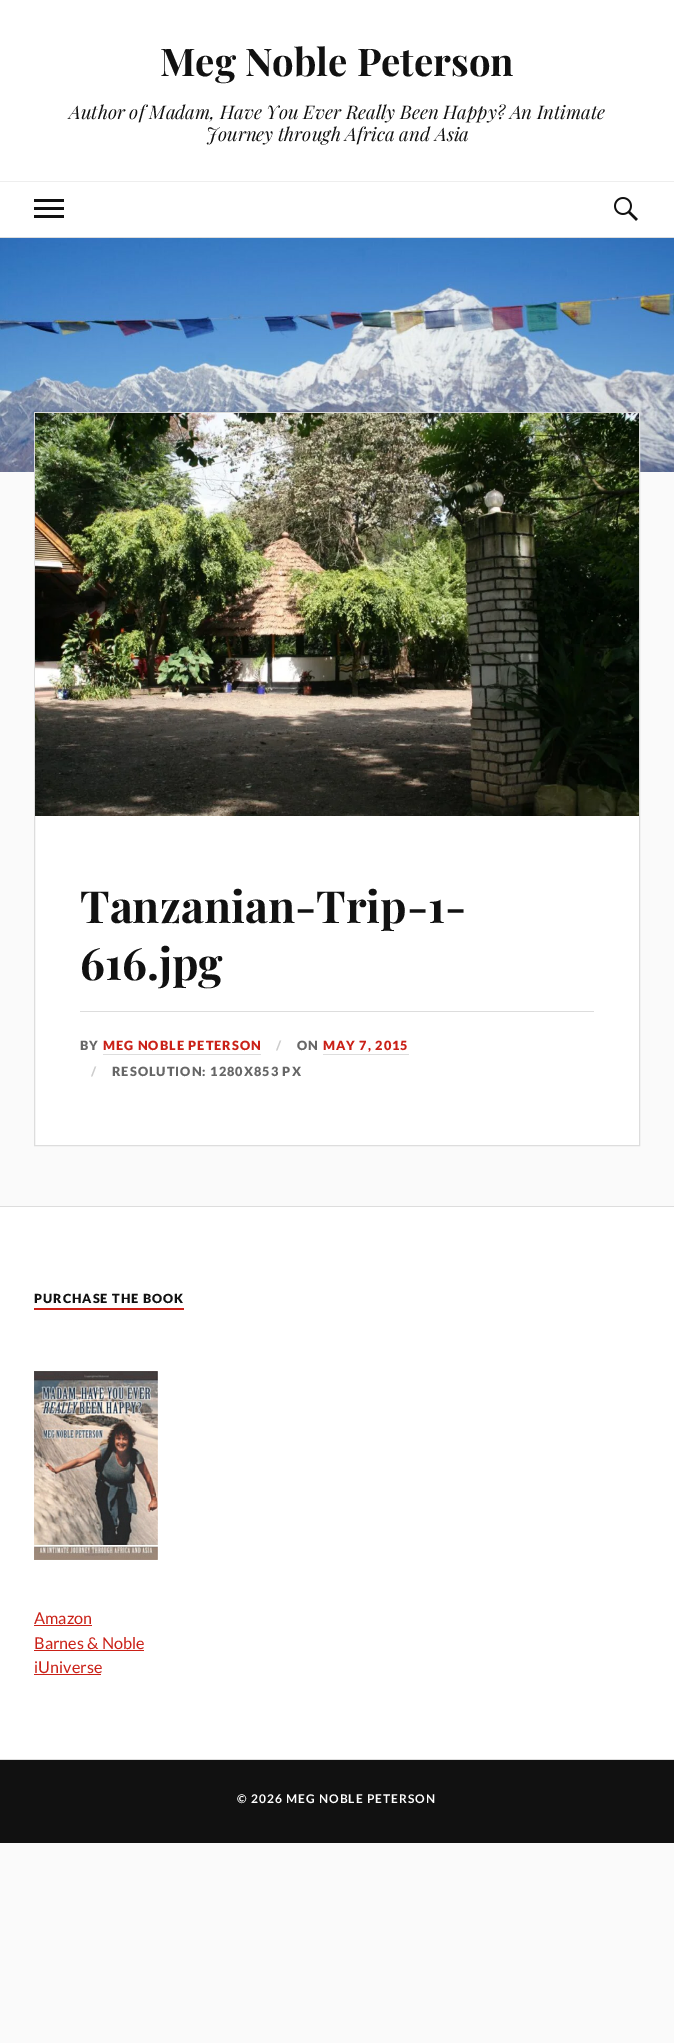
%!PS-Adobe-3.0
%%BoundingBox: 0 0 674 2043
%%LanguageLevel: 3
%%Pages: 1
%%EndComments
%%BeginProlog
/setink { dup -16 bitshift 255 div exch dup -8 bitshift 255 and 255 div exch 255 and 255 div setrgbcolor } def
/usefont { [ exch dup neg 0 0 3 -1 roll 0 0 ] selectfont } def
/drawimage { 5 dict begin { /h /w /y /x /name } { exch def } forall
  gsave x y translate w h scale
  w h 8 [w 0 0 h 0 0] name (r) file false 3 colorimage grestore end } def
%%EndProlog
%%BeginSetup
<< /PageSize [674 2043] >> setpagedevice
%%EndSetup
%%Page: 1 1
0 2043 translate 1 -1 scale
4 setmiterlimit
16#FAFAFA setink
0 0 674 2043 rectfill
16#FFFFFF setink
0 0 674 181 rectfill
/PlayfairDisplay-Bold 38.25 usefont
16#111111 setink
160 76 moveto (Meg Noble Peterson) show
/PlayfairDisplay-Italic 18.7 usefont
69 119 moveto (Author of Madam, Have You Ever Really Been Happy? An Intimate) show
206 141 moveto (Journey through Africa and Asia) show
[
    [0 182 674 55 16#FFFFFF]
    [0 181 674 1 16#EEEEEE]
    [34 199 30 3 16#111111]
    [34 207 30 3 16#111111]
    [34 215 30 3 16#111111]
] { aload pop setink rectfill } forall
(img1.raw) 614 197 24 24 drawimage
16#DDDDDD setink
0 237 674 1 rectfill
(img2.raw) 0 238 674 234 drawimage
16#FFFFFF setink
35 816 604 329 rectfill
16#DDDDDD setink
34.5 412.5 605 733 rectstroke
(img3.raw) 35 413 604 403 drawimage
/PlayfairDisplay-Bold 44.25 usefont
16#111111 setink
80 923 moveto (Tanzanian-Trip-1-) show
80 980 moveto (616.jpg) show
16#DDDDDD setink
80 1011 514 1 rectfill
/Lato-Black 12.75 usefont
16#666666 setink
80 1050 moveto 1 0 (BY) ashow
16#CA2017 setink
103 1050 moveto 1 0 (MEG NOBLE PETERSON) ashow
16#DDDDDD setink
103 1054 158 1 rectfill
16#CCCCCC setink
276 1050 moveto 1 0 (/) ashow
16#666666 setink
297 1050 moveto 1 0 (ON) ashow
16#CA2017 setink
323 1050 moveto 1 0 (MAY 7, 2015) ashow
16#DDDDDD setink
323 1054 86 1 rectfill
16#CCCCCC setink
91 1076 moveto 1 0 (/) ashow
16#666666 setink
112 1076 moveto 1 0 (RESOLUTION: 1280X853 PX) ashow
[
    [0 1207 674 552 16#FFFFFF]
    [0 1206 674 1 16#DDDDDD]
    [0 1759 674 1 16#DDDDDD]
    [34 1308 150 2 16#CA2017]
] { aload pop setink rectfill } forall
/Lato-Black 12.6 usefont
16#111111 setink
34 1303 moveto 1 0 (PURCHASE THE BOOK) ashow
(img4.raw) 34 1371 124 189 drawimage
/Lato-Regular 16.25 usefont
16#CA2017 setink
34 1624 moveto (Amazon) show
34 1625 58 1 rectfill
34 1649 moveto (Barnes & Noble) show
34 1650 110 1 rectfill
34 1673 moveto (iUniverse) show
34 1674 67 1 rectfill
16#111111 setink
0 1760 674 83 rectfill
/Lato-Bold 12 usefont
16#FFFFFF setink
237 1803 moveto 1 0 (© 2026 MEG NOBLE PETERSON) ashow
showpage
%%EOF
